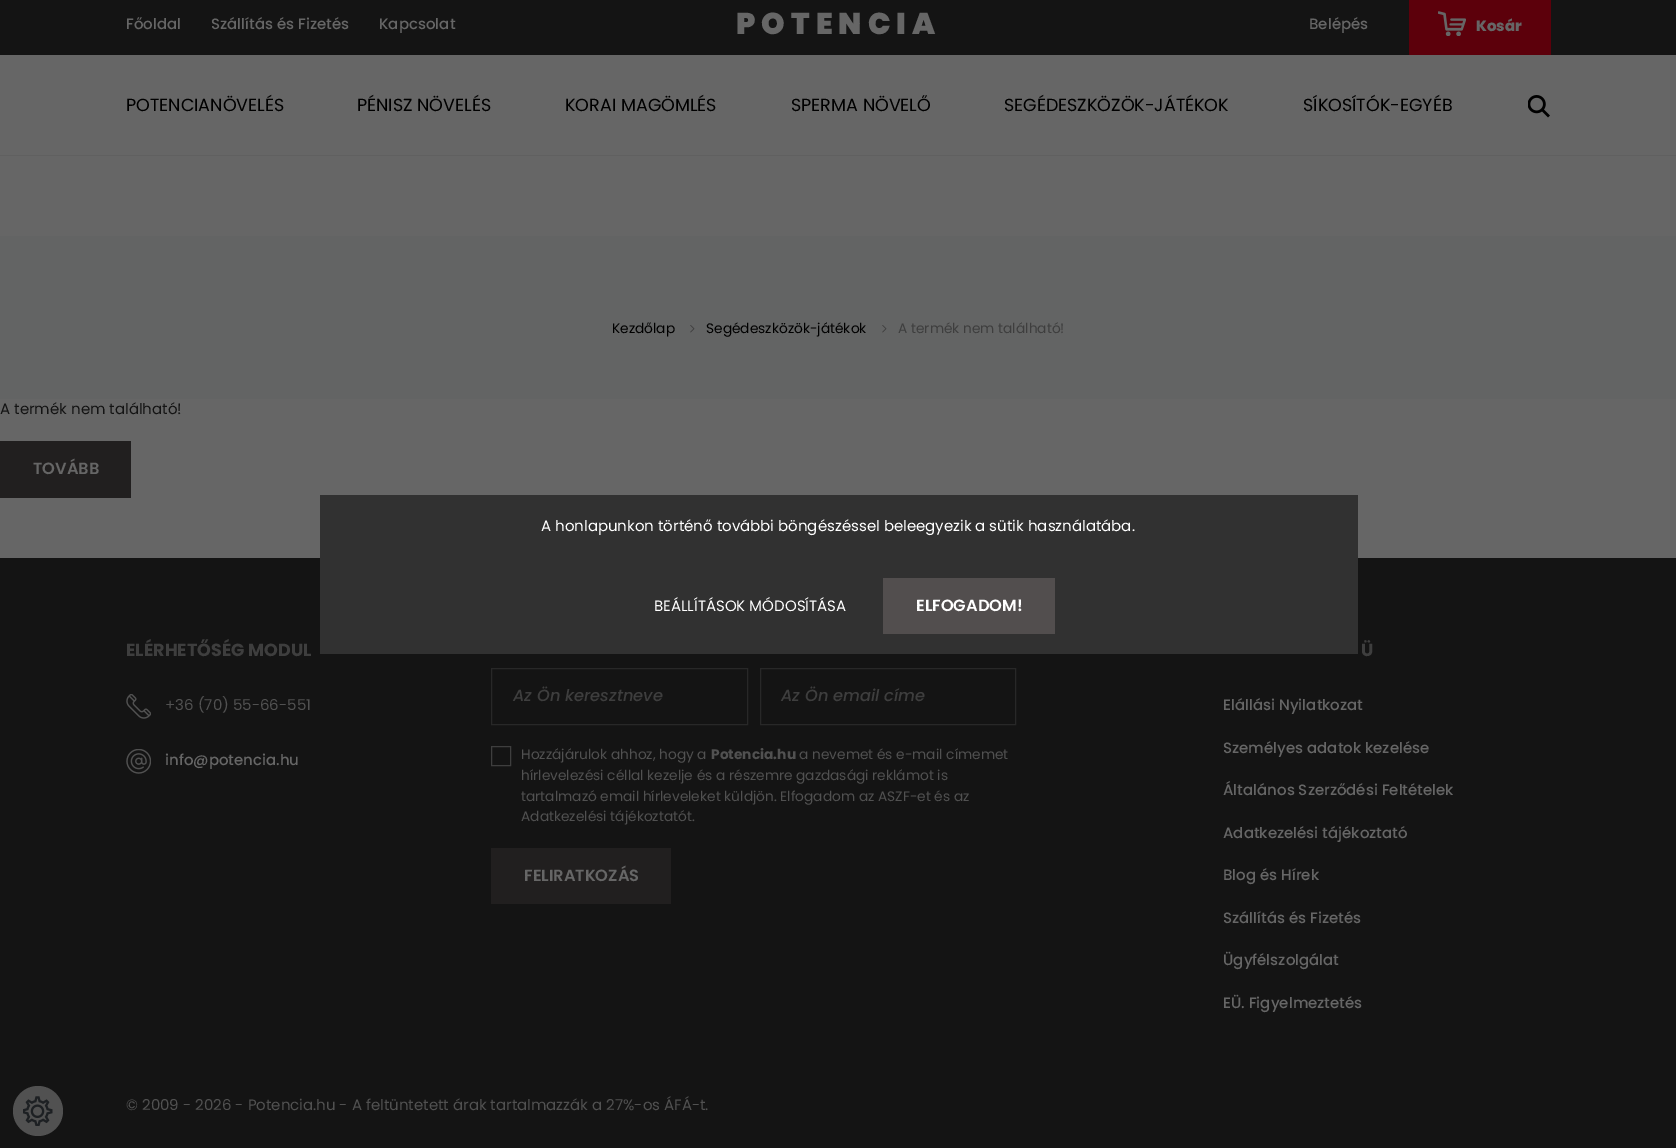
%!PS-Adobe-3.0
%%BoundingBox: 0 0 1676 1148
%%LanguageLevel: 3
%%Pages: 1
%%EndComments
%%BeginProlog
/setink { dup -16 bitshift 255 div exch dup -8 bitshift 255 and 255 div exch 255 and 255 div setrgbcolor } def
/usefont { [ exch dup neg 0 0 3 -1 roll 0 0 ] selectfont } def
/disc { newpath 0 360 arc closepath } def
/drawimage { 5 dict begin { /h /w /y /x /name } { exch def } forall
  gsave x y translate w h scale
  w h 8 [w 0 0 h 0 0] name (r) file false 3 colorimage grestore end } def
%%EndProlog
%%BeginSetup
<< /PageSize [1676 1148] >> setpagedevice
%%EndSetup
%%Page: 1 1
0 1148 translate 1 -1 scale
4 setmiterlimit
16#666666 setink
0 0 1676 1148 rectfill
16#141414 setink
0 0 1676 55 rectfill
/Poppins-Medium 15 usefont
16#666666 setink
[
    [(Főoldal) 126 29]
    [(Szállítás és Fizetés) 211 29]
    [(Kapcsolat) 379 29]
] { aload pop moveto show } forall
/Poppins-Black 30 usefont
736 34 moveto 6 0 (POTENCIA) ashow
/Poppins-Medium 15 usefont
1309 29 moveto (Belépés) show
16#5C000B setink
1409 0 142 55 rectfill
(img1.raw) 1438 11 28 25 drawimage
/Poppins-ExtraBold 15 usefont
16#666666 setink
1476 31 moveto (Kosár) show
16#606060 setink
0 155 1676 1 rectfill
/Poppins-Regular 17.5 usefont
16#000000 setink
[
    [(POTENCIANÖVELÉS) 126 111]
    [(PÉNISZ NÖVELÉS) 357 111]
    [(KORAI MAGÖMLÉS) 565 111]
    [(SPERMA NÖVELŐ) 791 111]
    [(SEGÉDESZKÖZÖK-JÁTÉKOK) 1004 111]
    [(SÍKOSÍTÓK-EGYÉB) 1303 111]
] { aload pop moveto show } forall
(img2.raw) 1528 95 22 23 drawimage
16#636464 setink
0 236 1676 163 rectfill
/Poppins-Regular 13.75 usefont
16#000000 setink
612 333 moveto (Kezdőlap) show
(img3.raw) 690 325 5 8 drawimage
706 333 moveto (Segédeszközök-játékok) show
(img4.raw) 882 325 5 8 drawimage
16#3E3E3E setink
898 333 moveto (A termék nem található!) show
/Poppins-Regular 15 usefont
16#141414 setink
0 414 moveto (A termék nem található!) show
16#211F1F setink
0 441 131 57 rectfill
/Poppins-SemiBold 16.25 usefont
16#666666 setink
33 474 moveto (TOVÁBB) show
16#141414 setink
0 558 1676 590 rectfill
/Poppins-Bold 17.5 usefont
16#3E3E3E setink
126 656 moveto (ELÉRHETŐSÉG MODUL) show
(img5.raw) 126 694 25 25 drawimage
/Poppins-Regular 15 usefont
16#515151 setink
165 710 moveto (+36 \(70\) 55-66-551) show
(img6.raw) 126 749 25 25 drawimage
/Poppins-Medium 15 usefont
16#666666 setink
165 765 moveto (info@potencia.hu) show
16#282828 setink
491.5 668.5 256 56 rectstroke
/Poppins-MediumItalic 16.25 usefont
16#3E3E3E setink
513 701 moveto (Az Ön keresztneve) show
16#282828 setink
760.5 668.5 255 56 rectstroke
16#3E3E3E setink
781 701 moveto (Az Ön email címe) show
491.5 746.5 19 19 rectstroke
/Poppins-Regular 13.75 usefont
16#515151 setink
521 759 moveto (Hozzájárulok ahhoz, hogy a) show
/Poppins-Bold 13.75 usefont
711 759 moveto (Potencia.hu) show
/Poppins-Regular 13.75 usefont
[
    [(a nevemet és e-mail címemet) 799 759]
    [(hírlevelezési céllal kezelje és a részemre gazdasági reklámot is) 521 780]
    [(tartalmazó email hírleveleket küldjön. Elfogadom az ASZF-et és az) 521 801]
    [(Adatkezelési tájékoztatót.) 521 821]
] { aload pop moveto show } forall
16#211F1F setink
491 848 180 56 rectfill
/Poppins-SemiBold 16.25 usefont
16#666666 setink
524 881 moveto (FELIRATKOZÁS) show
/Poppins-Bold 17.5 usefont
16#3E3E3E setink
1361 656 moveto (Ü) show
/Poppins-Medium 15 usefont
16#666666 setink
[
    [(Elállási Nyilatkozat) 1223 710]
    [(Személyes adatok kezelése) 1223 753]
    [(Általános Szerződési Feltételek) 1223 795]
    [(Adatkezelési tájékoztató) 1223 838]
    [(Blog és Hírek) 1223 880]
    [(Szállítás és Fizetés) 1223 923]
    [(Ügyfélszolgálat) 1223 965]
    [(EÜ. Figyelmeztetés) 1223 1008]
] { aload pop moveto show } forall
/Poppins-Regular 15 usefont
16#515151 setink
126 1110 moveto (© 2009 - 2026 - Potencia.hu - A feltüntetett árak tartalmazzák a 27%-os ÁFÁ-t.) show
16#313131 setink
320 495 1038 159 rectfill
16#FFFFFF setink
541 531 moveto (A honlapunkon történő további böngészéssel beleegyezik a sütik használatába.) show
654 611 moveto (BEÁLLÍTÁSOK MÓDOSÍTÁSA) show
16#524E4E setink
883 578 172 56 rectfill
/Poppins-SemiBold 16.25 usefont
16#FFFFFF setink
916 611 moveto (ELFOGADOM!) show
16#515151 setink
38 1111 25 disc fill
(img7.raw) 23 1096 30 30 drawimage
showpage
%%EOF
